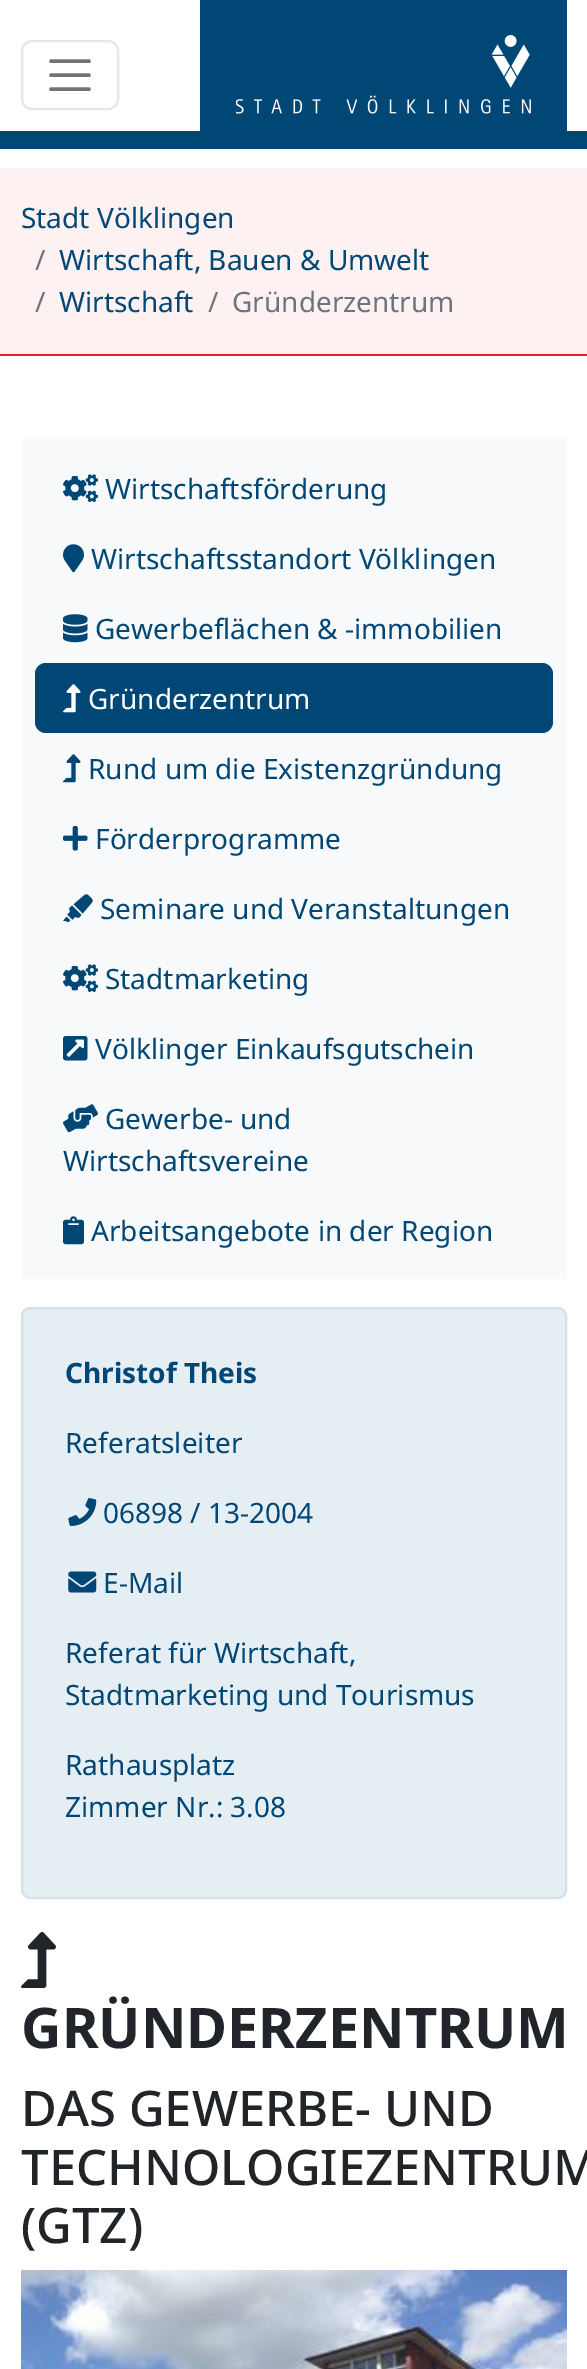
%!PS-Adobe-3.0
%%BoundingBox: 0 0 587 2369
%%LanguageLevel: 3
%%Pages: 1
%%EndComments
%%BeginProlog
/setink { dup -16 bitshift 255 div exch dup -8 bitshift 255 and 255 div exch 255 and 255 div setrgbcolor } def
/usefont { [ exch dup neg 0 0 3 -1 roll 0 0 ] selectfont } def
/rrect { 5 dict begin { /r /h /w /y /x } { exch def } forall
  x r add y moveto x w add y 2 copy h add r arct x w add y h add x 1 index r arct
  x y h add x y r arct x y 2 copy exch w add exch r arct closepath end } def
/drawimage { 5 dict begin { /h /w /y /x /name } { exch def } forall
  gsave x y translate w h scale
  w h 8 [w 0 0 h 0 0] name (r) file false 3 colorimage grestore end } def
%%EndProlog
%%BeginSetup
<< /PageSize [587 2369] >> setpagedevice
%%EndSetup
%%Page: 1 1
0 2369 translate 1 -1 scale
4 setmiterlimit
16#FFFFFF setink
0 0 587 2369 rectfill
16#004775 setink
0 131 587 18 rectfill
16#E6E6E6 setink
2 setlinewidth
22 41 96 68 10 rrect stroke
16#737373 setink
3.5 setlinewidth
1 setlinecap
51 61 moveto 89 61 lineto 51 75 moveto 89 75 lineto 51 89 moveto 89 89 lineto stroke
16#004775 setink
200 0 367 131 rectfill
(img1.raw) 236 35 295 79 drawimage
16#FEF1F1 setink
0 168 587 186 rectfill
16#ED1C24 setink
0 354 587 2 rectfill
/NotoSans-Regular 28 usefont
16#004775 setink
21 228 moveto (Stadt Völklingen) show
16#6C757D setink
35 270 moveto (/) show
16#004775 setink
59 270 moveto (Wirtschaft, Bauen & Umwelt) show
16#6C757D setink
35 312 moveto (/) show
16#004775 setink
59 312 moveto (Wirtschaft) show
16#6C757D setink
208 312 moveto (/) show
232 312 moveto (Gründerzentrum) show
16#F8F9FA setink
21 439 546 840 rectfill
(img2.raw) 63 474 35 29 drawimage
16#004775 setink
105 499 moveto (Wirtschaftsförderung) show
(img3.raw) 63 544 21 29 drawimage
91 569 moveto (Wirtschaftsstandort Völklingen) show
(img4.raw) 63 614 25 29 drawimage
95 639 moveto (Gewerbeflächen & -immobilien) show
35 663 518 70 11 rrect fill
(img5.raw) 63 684 18 29 drawimage
16#FFFFFF setink
88 709 moveto (Gründerzentrum) show
(img6.raw) 63 754 18 29 drawimage
16#004775 setink
88 779 moveto (Rund um die Existenzgründung) show
(img7.raw) 63 826 25 25 drawimage
95 849 moveto (Förderprogramme) show
(img8.raw) 63 894 30 29 drawimage
100 919 moveto (Seminare und Veranstaltungen) show
(img2.raw) 63 964 35 29 drawimage
105 989 moveto (Stadtmarketing) show
(img9.raw) 63 1036 25 25 drawimage
95 1059 moveto (Völklinger Einkaufsgutschein) show
(img10.raw) 63 1104 35 29 drawimage
105 1129 moveto (Gewerbe- und) show
63 1171 moveto (Wirtschaftsvereine) show
(img11.raw) 63 1216 21 29 drawimage
91 1241 moveto (Arbeitsangebote in der Region) show
16#E5EEF3 setink
22 1308 544 590 8 rrect gsave fill grestore
16#D4E3EB setink
2 setlinewidth
0 setlinecap
stroke
/NotoSans-Bold 28 usefont
16#004775 setink
65 1383 moveto (Christof Theis) show
/NotoSans-Regular 28 usefont
65 1453 moveto (Referatsleiter) show
(img12.raw) 68 1498 29 28 drawimage
103 1523 moveto (06898 / 13-2004) show
(img13.raw) 68 1571 29 22 drawimage
[
    [(E-Mail) 103 1593]
    [(Referat für Wirtschaft,) 65 1663]
    [(Stadtmarketing und Tourismus) 65 1705]
    [(Rathausplatz) 65 1775]
    [(Zimmer Nr.: 3.08) 65 1817]
] { aload pop moveto show } forall
(img14.raw) 21 1932 35 56 drawimage
/NotoSans-Bold 56 usefont
16#212529 setink
21 2048 moveto (GRÜNDERZENTRUM) show
/NotoSans-Medium 49 usefont
[
    [(DAS GEWERBE- UND) 21 2126]
    [(TECHNOLOGIEZENTRUM) 21 2185]
    [(\(GTZ\)) 21 2243]
] { aload pop moveto show } forall
(img15.raw) 21 2269 546 100 drawimage
showpage
%%EOF
